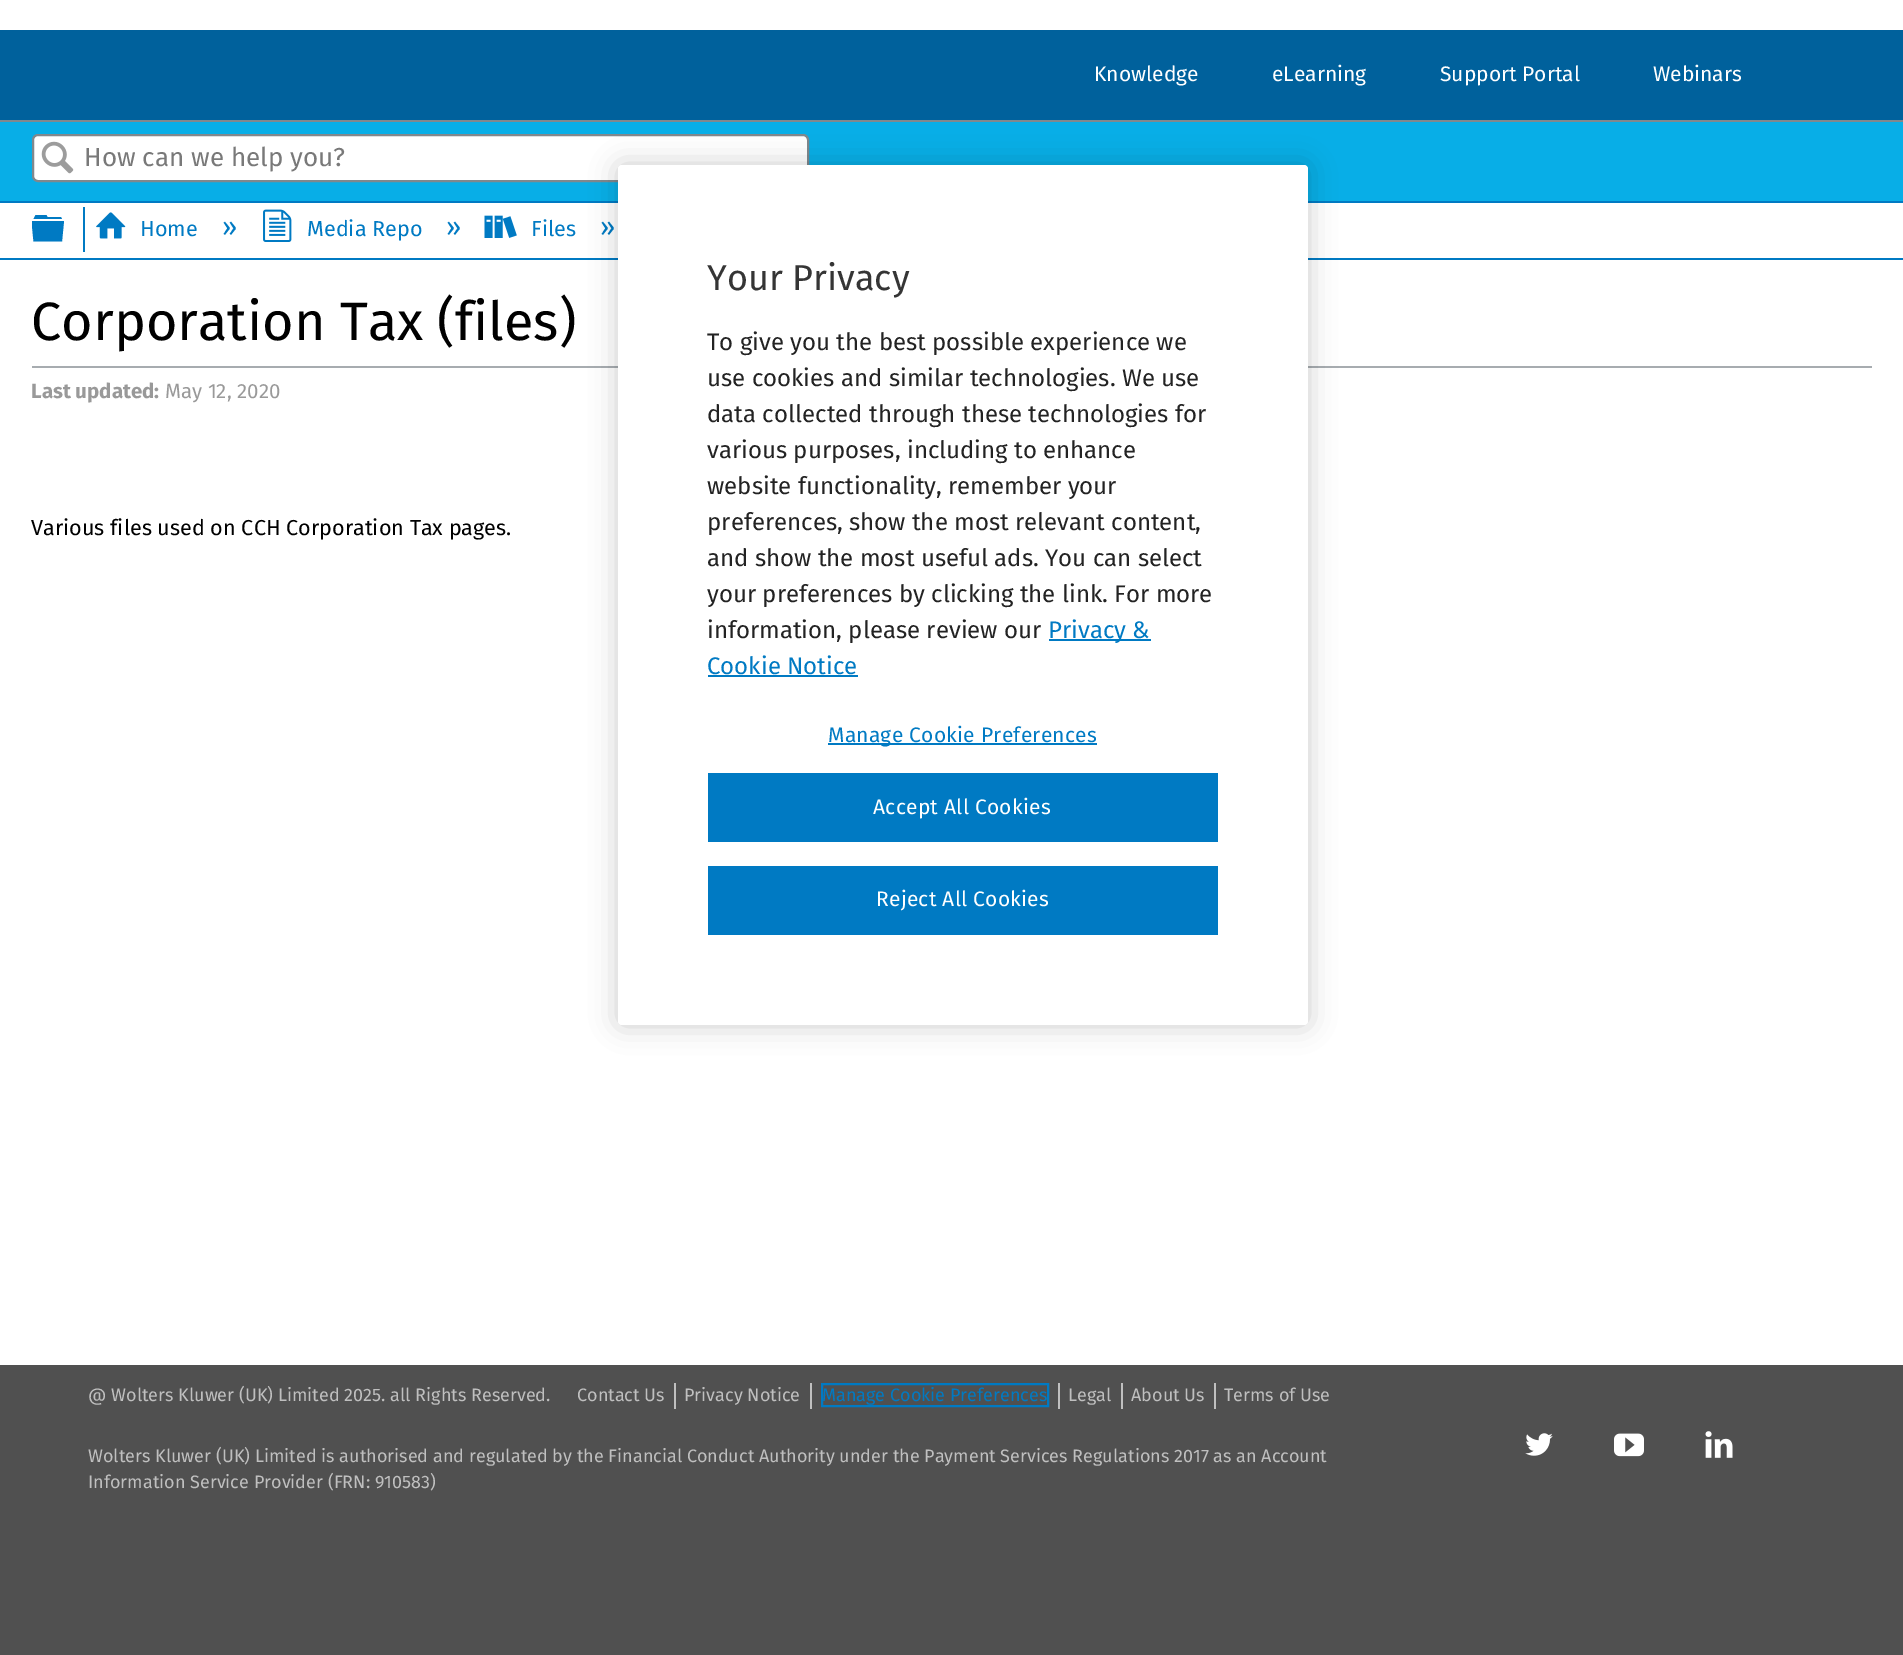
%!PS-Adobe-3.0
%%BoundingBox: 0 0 1903 1655
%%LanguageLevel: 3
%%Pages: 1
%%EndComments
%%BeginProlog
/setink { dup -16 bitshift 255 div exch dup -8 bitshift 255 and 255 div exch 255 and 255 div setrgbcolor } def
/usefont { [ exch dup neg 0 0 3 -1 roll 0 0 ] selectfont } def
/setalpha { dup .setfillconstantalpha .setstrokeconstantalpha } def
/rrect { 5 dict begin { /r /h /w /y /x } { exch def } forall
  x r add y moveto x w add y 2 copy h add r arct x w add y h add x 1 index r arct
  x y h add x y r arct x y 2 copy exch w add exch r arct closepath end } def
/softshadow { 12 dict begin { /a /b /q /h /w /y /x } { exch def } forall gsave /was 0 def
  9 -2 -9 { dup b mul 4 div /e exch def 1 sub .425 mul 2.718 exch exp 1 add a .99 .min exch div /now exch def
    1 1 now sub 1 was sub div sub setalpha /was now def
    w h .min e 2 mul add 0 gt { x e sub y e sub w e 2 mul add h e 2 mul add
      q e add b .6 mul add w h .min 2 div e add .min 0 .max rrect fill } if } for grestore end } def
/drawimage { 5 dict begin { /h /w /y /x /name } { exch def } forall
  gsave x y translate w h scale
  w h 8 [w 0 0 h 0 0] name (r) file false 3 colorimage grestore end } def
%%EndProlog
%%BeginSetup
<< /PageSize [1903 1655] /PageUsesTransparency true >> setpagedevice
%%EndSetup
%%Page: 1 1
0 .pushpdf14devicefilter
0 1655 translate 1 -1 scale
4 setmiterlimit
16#FFFFFF setink
0 0 1903 1655 rectfill
16#00619C setink
0 30 1903 90 rectfill
/FiraSans-Regular 21 usefont
16#FFFFFF setink
[
    [(Knowledge) 1094 81]
    [(eLearning) 1272 81]
    [(Support Portal) 1440 81]
    [(Webinars) 1653 81]
] { aload pop moveto show } forall
16#08AEE7 setink
0 122 1903 79 rectfill
16#80888D setink
0 120 1903 2 rectfill
16#FFFFFF setink
33 135 775 46 5 rrect gsave fill grestore
16#80888D setink
2 setlinewidth
stroke
(img1.raw) 41 141 33 33 drawimage
/FiraSans-Regular 26 usefont
16#797979 setink
84 166 moveto (How can we help you?) show
16#007AC3 setink
0 201 1903 2 rectfill
0 258 1903 2 rectfill
32 226 moveto 32 221 lineto 64 221 lineto 62 241.5 lineto 33.5 241.5 lineto closepath 61 217 moveto 47.5 217 lineto 46.5 215 lineto 35.5 215 lineto 33.5 219 lineto 62 219 lineto closepath eofill
83 207 2 45 rectfill
(img2.raw) 96 212 30 27 drawimage
/FiraSans-Regular 21.6 usefont
140 236 moveto (Home) show
/FiraSans-Regular 27 usefont
222 236 moveto (») show
(img3.raw) 263 209 29 33 drawimage
/FiraSans-Regular 21.6 usefont
307 236 moveto (Media Repo) show
/FiraSans-Regular 27 usefont
446 236 moveto (») show
(img4.raw) 484 215 33 23 drawimage
/FiraSans-Regular 21.6 usefont
531 236 moveto (Files) show
/FiraSans-Regular 27 usefont
600 236 moveto (») show
16#A7ACB0 setink
32 366 1840 2 rectfill
/FiraSans-Regular 54 usefont
16#000000 setink
31 340 moveto (Corporation Tax \(files\)) show
/FiraSans-Bold 20.5 usefont
16#999999 setink
31 398 moveto (Last updated:) show
/FiraSans-Regular 20.5 usefont
165 398 moveto (May 12, 2020) show
/FiraSans-Regular 21.6 usefont
16#000000 setink
31 535 moveto (Various files used on CCH Corporation Tax pages.) show
16#505050 setink
0 1365 1903 290 rectfill
/FiraSans-Regular 18 usefont
16#BFBFBF setink
88 1401 moveto (@ Wolters Kluwer \(UK\) Limited 2025. all Rights Reserved.) show
674 1383 2 26 rectfill
577 1401 moveto (Contact Us) show
810 1383 2 26 rectfill
684 1401 moveto (Privacy Notice) show
1058 1383 2 26 rectfill
16#007AC3 setink
822 1384 226 22 rectstroke
822 1401 moveto (Manage Cookie Preferences) show
16#BFBFBF setink
1121 1383 2 26 rectfill
1068 1401 moveto (Legal) show
1214 1383 2 26 rectfill
[
    [(About Us) 1131 1401]
    [(Terms of Use) 1224 1401]
    [(Wolters Kluwer \(UK\) Limited is authorised and regulated by the Financial Conduct Authority under the Payment Services Regulations 2017 as an Account) 88 1462]
    [(Information Service Provider \(FRN: 910583\)) 88 1488]
] { aload pop moveto show } forall
(img5.raw) 1525 1433 28 23 drawimage
(img6.raw) 1614 1433 30 24 drawimage
(img7.raw) 1705 1431 28 27 drawimage
16#000000 setink
618 165 690 860 4 13.5 0.2 softshadow
16#FFFFFF setink
618 165 690 860 4 rrect fill
/FiraSans-Regular 36 usefont
16#353535 setink
707 290 moveto (Your Privacy) show
/FiraSans-Regular 24 usefont
16#232323 setink
[
    [(To give you the best possible experience we) 707 350]
    [(use cookies and similar technologies. We use) 707 386]
    [(data collected through these technologies for) 707 422]
    [(various purposes, including to enhance) 707 458]
    [(website functionality, remember your) 707 494]
    [(preferences, show the most relevant content,) 707 530]
    [(and show the most useful ads. You can select) 707 566]
    [(your preferences by clicking the link. For more) 707 602]
    [(information, please review our) 707 638]
] { aload pop moveto show } forall
16#007AC3 setink
1049 639 102 2 rectfill
1048 638 moveto (Privacy &) show
707 674 moveto (Cookie Notice) show
708 675 150 2 rectfill
828 743 269 2 rectfill
/FiraSans-Regular 21 usefont
828 742 moveto 0.25 0 (Manage Cookie Preferences) ashow
708 773 510 69 rectfill
16#FFFFFF setink
873 814 moveto 0.25 0 (Accept All Cookies) ashow
16#007AC3 setink
708 866 510 69 rectfill
16#FFFFFF setink
876 906 moveto 0.25 0 (Reject All Cookies) ashow
.poppdf14devicefilter showpage
%%EOF
